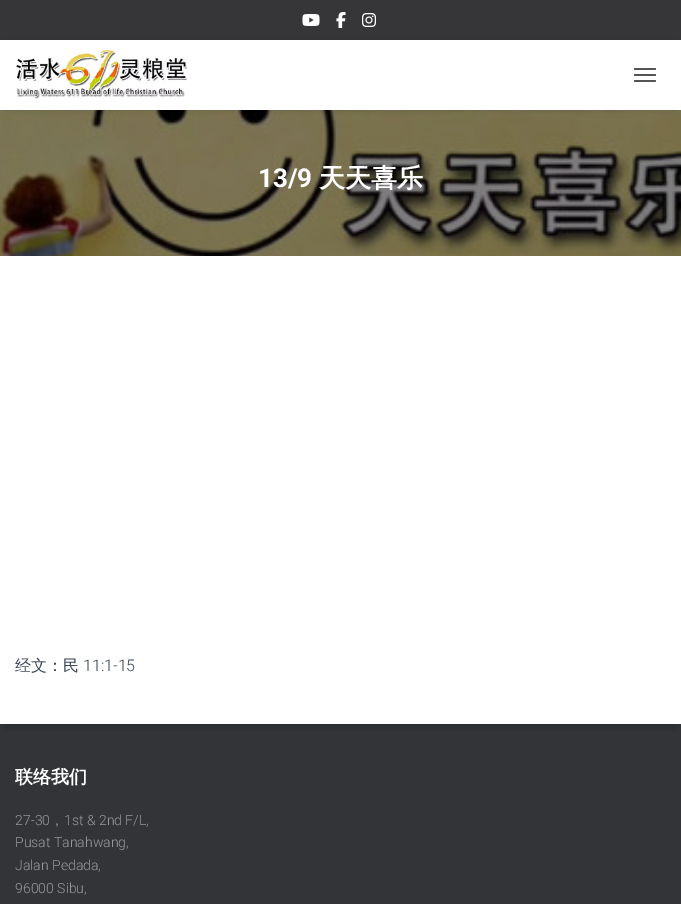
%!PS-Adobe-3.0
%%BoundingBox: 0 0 681 904
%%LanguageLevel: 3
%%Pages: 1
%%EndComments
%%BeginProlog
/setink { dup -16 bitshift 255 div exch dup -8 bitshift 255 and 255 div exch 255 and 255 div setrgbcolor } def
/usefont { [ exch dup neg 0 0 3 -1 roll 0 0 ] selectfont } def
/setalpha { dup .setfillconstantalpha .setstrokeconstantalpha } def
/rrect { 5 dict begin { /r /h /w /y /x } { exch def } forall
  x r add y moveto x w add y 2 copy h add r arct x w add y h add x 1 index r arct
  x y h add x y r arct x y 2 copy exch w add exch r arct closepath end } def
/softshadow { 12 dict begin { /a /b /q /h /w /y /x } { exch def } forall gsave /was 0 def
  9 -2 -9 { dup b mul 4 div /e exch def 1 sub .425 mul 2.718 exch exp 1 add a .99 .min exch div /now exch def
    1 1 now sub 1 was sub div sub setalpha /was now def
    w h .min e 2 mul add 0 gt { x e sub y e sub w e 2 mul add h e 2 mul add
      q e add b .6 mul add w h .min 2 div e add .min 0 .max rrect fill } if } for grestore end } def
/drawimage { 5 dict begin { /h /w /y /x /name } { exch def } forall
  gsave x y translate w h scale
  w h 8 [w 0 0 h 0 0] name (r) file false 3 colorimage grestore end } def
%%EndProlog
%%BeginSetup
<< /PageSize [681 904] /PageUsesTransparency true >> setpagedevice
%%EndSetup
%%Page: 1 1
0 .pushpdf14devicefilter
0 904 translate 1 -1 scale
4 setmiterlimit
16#323437 setink
0 0 681 904 rectfill
16#363537 setink
0 0 681 40 rectfill
(img1.raw) 302 14 18 12 drawimage
(img2.raw) 336 12 10 16 drawimage
(img3.raw) 362 13 14 14 drawimage
(img5.raw) 0 110 681 146 drawimage
16#000000 setink
6 47 669 58 0 5 0.42 softshadow
16#FFFFFF setink
0 40 681 70 rectfill
(img4.raw) 16 50 171 49 drawimage
16#555555 setink
634 68 22 2 1 rrect fill
634 74 22 2 1 rrect fill
634 80 22 2 1 rrect fill
/Roboto-Bold 26 usefont
16#FFFFFF setink
258 187 moveto (13/9) show
/WenQuanYiZenHei-Bold 26 usefont
319 187 moveto (天天喜乐) show
16#000000 setink
5 269 671 458 0 5 0.2 softshadow
16#FFFFFF setink
0 256 681 468 rectfill
/WenQuanYiZenHei-Medium 16 usefont
16#3C4858 setink
15 671 moveto (经文：民) show
/Roboto-Light 16 usefont
83 671 moveto (11:1-15) show
/WenQuanYiZenHei-Bold 18 usefont
16#FFFFFF setink
15 783 moveto (联络我们) show
/Roboto-Light 14 usefont
16#999999 setink
15 825 moveto (27-30) show
/WenQuanYiZenHei-Medium 14 usefont
50 825 moveto (，) show
/Roboto-Light 14 usefont
[
    [(1st & 2nd F/L,) 64 825]
    [(Pusat Tanahwang,) 15 847]
    [(Jalan Pedada,) 15 870]
    [(96000 Sibu,) 15 893]
] { aload pop moveto show } forall
.poppdf14devicefilter showpage
%%EOF
